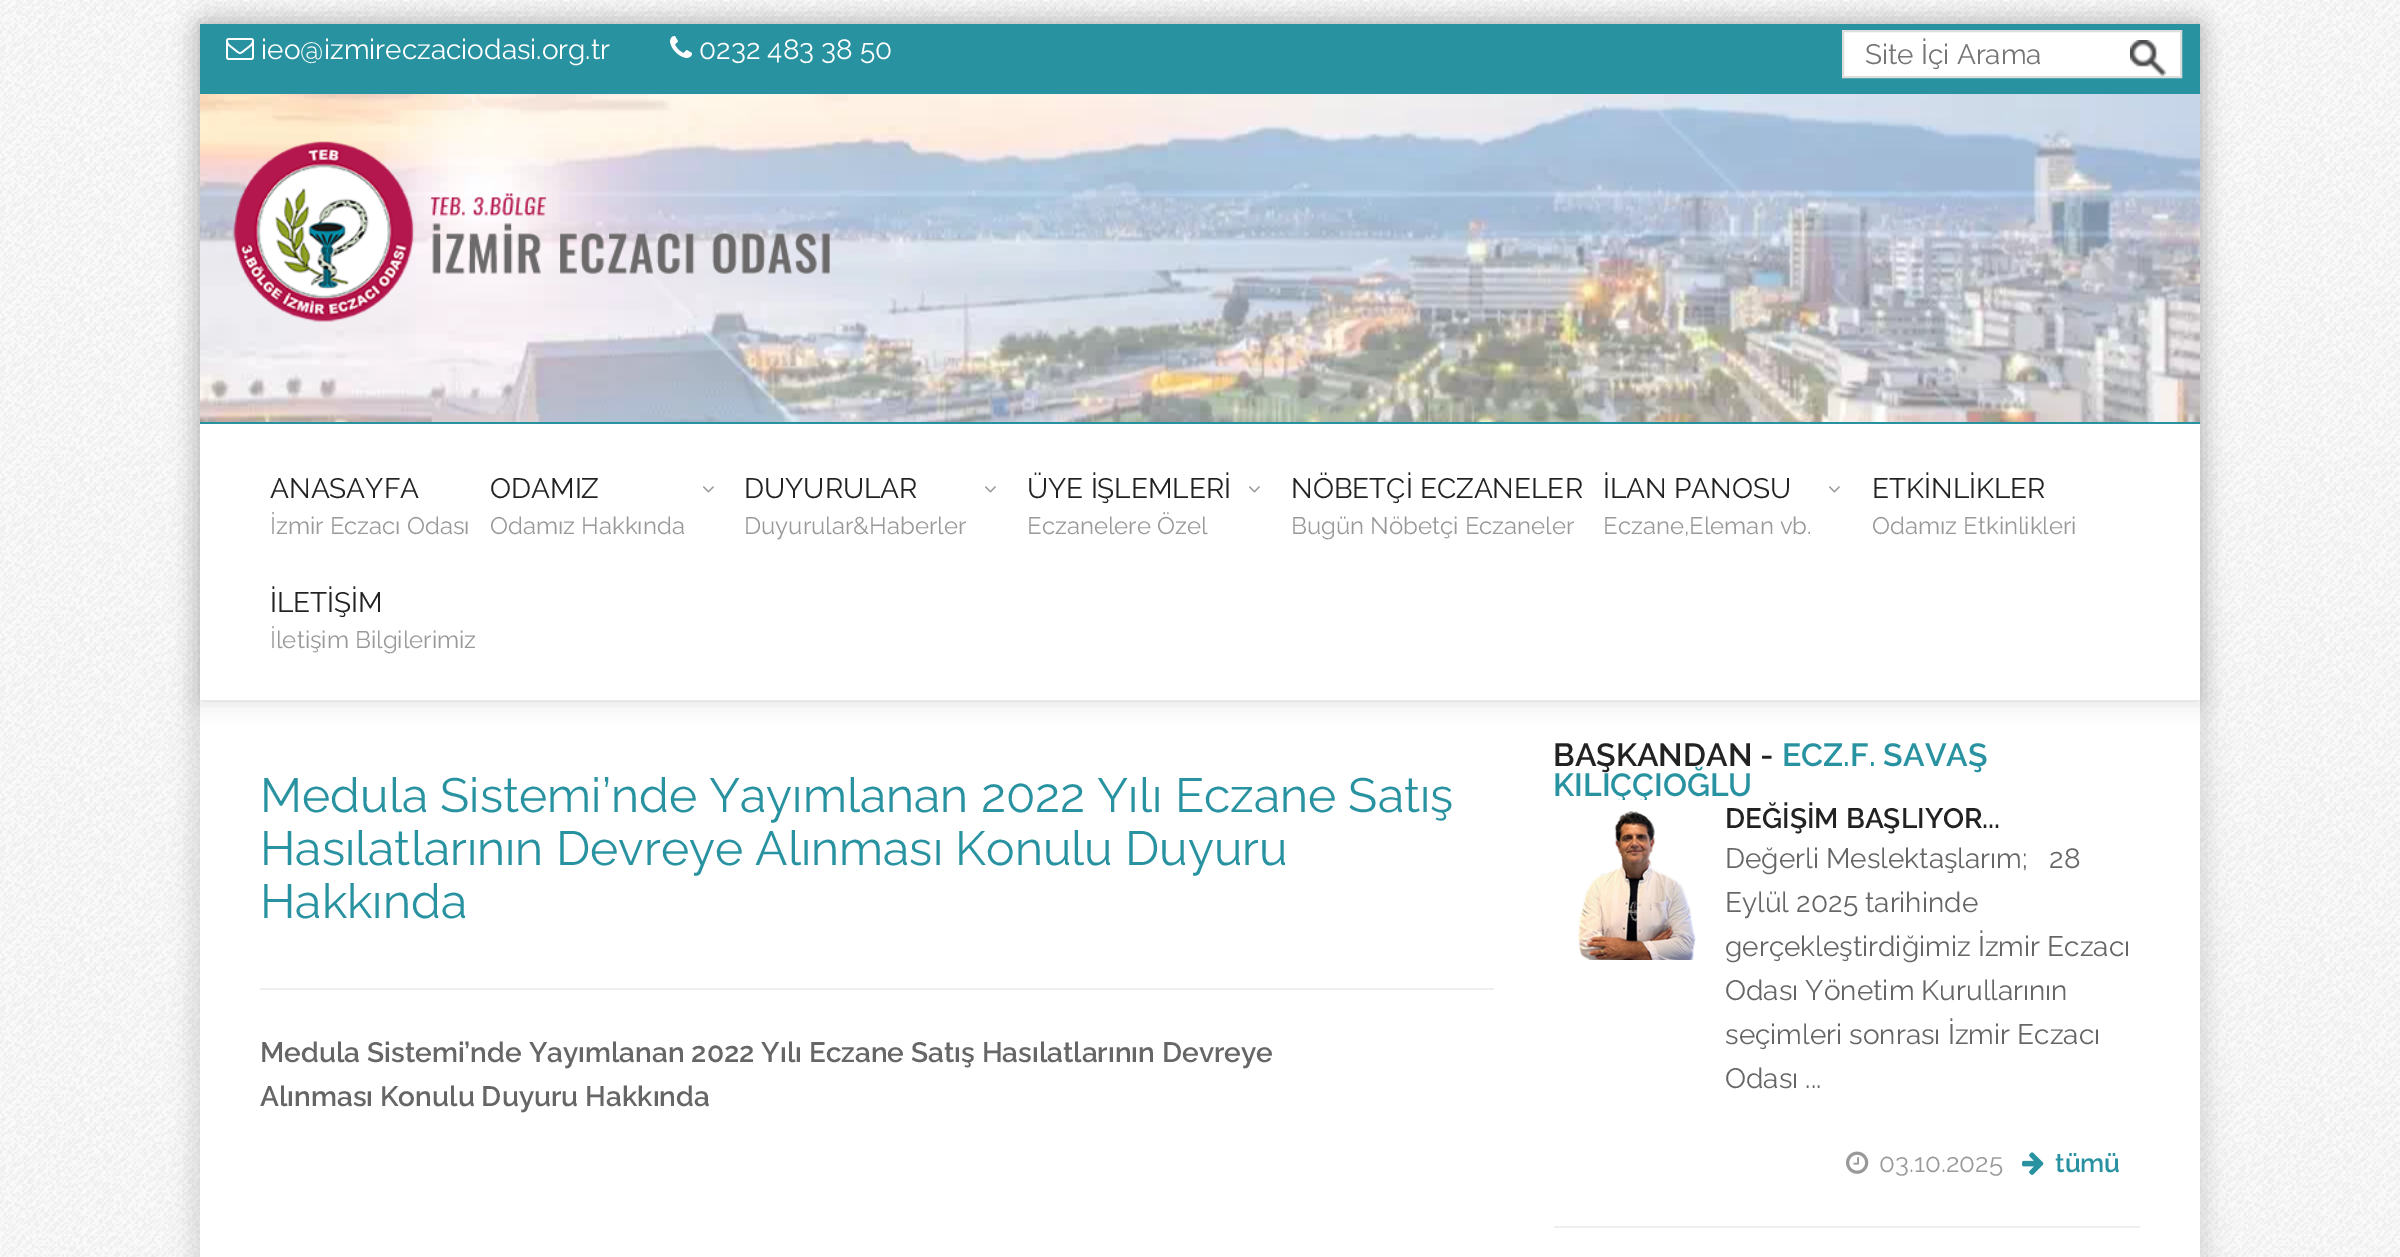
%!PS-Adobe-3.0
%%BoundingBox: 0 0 2400 1257
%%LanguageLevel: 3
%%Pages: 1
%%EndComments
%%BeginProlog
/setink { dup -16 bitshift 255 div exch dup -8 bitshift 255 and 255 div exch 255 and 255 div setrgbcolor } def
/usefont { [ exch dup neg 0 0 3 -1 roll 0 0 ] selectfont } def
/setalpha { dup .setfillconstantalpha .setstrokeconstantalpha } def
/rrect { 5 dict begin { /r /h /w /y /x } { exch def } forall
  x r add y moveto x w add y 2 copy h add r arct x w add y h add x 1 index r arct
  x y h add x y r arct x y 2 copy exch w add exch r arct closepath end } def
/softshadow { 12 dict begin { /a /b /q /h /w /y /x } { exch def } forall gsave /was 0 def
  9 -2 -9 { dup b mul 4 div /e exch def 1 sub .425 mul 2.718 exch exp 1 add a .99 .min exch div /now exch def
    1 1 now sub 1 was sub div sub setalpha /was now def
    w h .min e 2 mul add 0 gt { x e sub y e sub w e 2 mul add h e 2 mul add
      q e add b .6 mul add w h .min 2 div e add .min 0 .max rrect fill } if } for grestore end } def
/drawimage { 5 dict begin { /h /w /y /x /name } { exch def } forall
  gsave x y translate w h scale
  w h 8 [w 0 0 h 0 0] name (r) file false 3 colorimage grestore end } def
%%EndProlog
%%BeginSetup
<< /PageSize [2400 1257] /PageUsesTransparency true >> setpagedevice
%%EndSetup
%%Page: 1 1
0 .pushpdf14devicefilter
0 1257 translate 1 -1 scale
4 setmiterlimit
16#FFFFFF setink
0 0 2400 1257 rectfill
(img1.raw) 0 0 2400 1257 drawimage
16#000000 setink
190 14 2020 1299 26 10 0.1 softshadow
16#FFFFFF setink
200 700 2000 557 rectfill
16#222222 setink
200 24 2000 676 0 10 0.2 softshadow
16#FFFFFF setink
200 424 2000 276 rectfill
16#2892A0 setink
200 24 2000 70 rectfill
(img2.raw) 226 38 28 22 drawimage
/Raleway-Regular 28 usefont
16#FFFFFF setink
261 59 moveto (ieo@izmireczaciodasi.org.tr) show
(img3.raw) 670 36 22 22 drawimage
699 59 moveto (0232 483 38 50) show
1843 31 moveto 2181 31 lineto 2181 77 lineto 1843 77 lineto closepath gsave fill grestore
16#DDDDDD setink
2 setlinewidth
stroke
16#757575 setink
1865 64 moveto (Site İçi Arama) show
(img4.raw) 2130 40 36 36 drawimage
(img5.raw) 200 94 2000 328 drawimage
16#2892A0 setink
200 422 2000 2 rectfill
(img6.raw) 233 141 597 181 drawimage
16#222222 setink
270 498 moveto (ANASAYFA) show
/Raleway-Regular 24 usefont
16#999999 setink
270 534 moveto (İzmir Eczacı Odası) show
/Raleway-Regular 28 usefont
16#222222 setink
490 498 moveto (ODAMIZ) show
(img7.raw) 703 486 11 7 drawimage
/Raleway-Regular 24 usefont
16#999999 setink
490 534 moveto (Odamız Hakkında) show
/Raleway-Regular 28 usefont
16#222222 setink
744 498 moveto (DUYURULAR) show
(img7.raw) 985 486 11 7 drawimage
/Raleway-Regular 24 usefont
16#999999 setink
744 534 moveto (Duyurular&Haberler) show
/Raleway-Regular 28 usefont
16#222222 setink
1027 498 moveto (ÜYE İŞLEMLERİ) show
(img7.raw) 1249 486 11 7 drawimage
/Raleway-Regular 24 usefont
16#999999 setink
1027 534 moveto (Eczanelere Özel) show
/Raleway-Regular 28 usefont
16#222222 setink
1291 498 moveto (NÖBETÇİ ECZANELER) show
/Raleway-Regular 24 usefont
16#999999 setink
1291 534 moveto (Bugün Nöbetçi Eczaneler) show
/Raleway-Regular 28 usefont
16#222222 setink
1603 498 moveto (İLAN PANOSU) show
(img7.raw) 1829 486 11 7 drawimage
/Raleway-Regular 24 usefont
16#999999 setink
1603 534 moveto (Eczane,Eleman vb.) show
/Raleway-Regular 28 usefont
16#222222 setink
1872 498 moveto (ETKİNLİKLER) show
/Raleway-Regular 24 usefont
16#999999 setink
1872 534 moveto (Odamız Etkinlikleri) show
/Raleway-Regular 28 usefont
16#222222 setink
270 612 moveto (İLETİŞİM) show
/Raleway-Regular 24 usefont
16#999999 setink
270 648 moveto (İletişim Bilgilerimiz) show
/Raleway-Regular 48 usefont
16#2892A0 setink
[
    [(Medula Sistemi’nde Yayımlanan 2022 Yılı Eczane Satış) 260 812]
    [(Hasılatlarının Devreye Alınması Konulu Duyuru) 260 865]
    [(Hakkında) 260 918]
] { aload pop moveto show } forall
16#EEEEEE setink
260 988 1234 2 rectfill
/Raleway-SemiBold 28 usefont
16#666666 setink
260 1062 moveto (Medula Sistemi’nde Yayımlanan 2022 Yılı Eczane Satış Hasılatlarının Devreye) show
260 1106 moveto (Alınması Konulu Duyuru Hakkında) show
/Raleway-SemiBold 32 usefont
16#222222 setink
1553 766 moveto (BAŞKANDAN -) show
16#2892A0 setink
1782 766 moveto (ECZ.F. SAVAŞ) show
1553 796 moveto (KILIÇÇIOĞLU) show
16#FFFFFF setink
1618 800 30 3 rectfill
(img8.raw) 1578 811 118 149 drawimage
/Raleway-SemiBold 28 usefont
16#222222 setink
1725 828 moveto (DEĞİŞİM BAŞLIYOR...) show
/Raleway-Regular 28 usefont
16#666666 setink
[
    [(Değerli Meslektaşlarım;) 1725 868]
    [(28) 2049 868]
    [(Eylül 2025 tarihinde) 1725 912]
    [(gerçekleştirdiğimiz İzmir Eczacı) 1725 956]
    [(Odası Yönetim Kurullarının) 1725 1000]
    [(seçimleri sonrası İzmir Eczacı) 1725 1044]
    [(Odası ...) 1725 1088]
] { aload pop moveto show } forall
(img9.raw) 1846 1151 23 23 drawimage
/Raleway-Regular 26 usefont
16#999999 setink
1879 1172 moveto (03.10.2025) show
(img10.raw) 2022 1152 22 23 drawimage
/Raleway-SemiBold 26 usefont
16#2892A0 setink
2055 1172 moveto (tümü) show
16#EEEEEE setink
1554 1226 586 2 rectfill
.poppdf14devicefilter showpage
%%EOF
